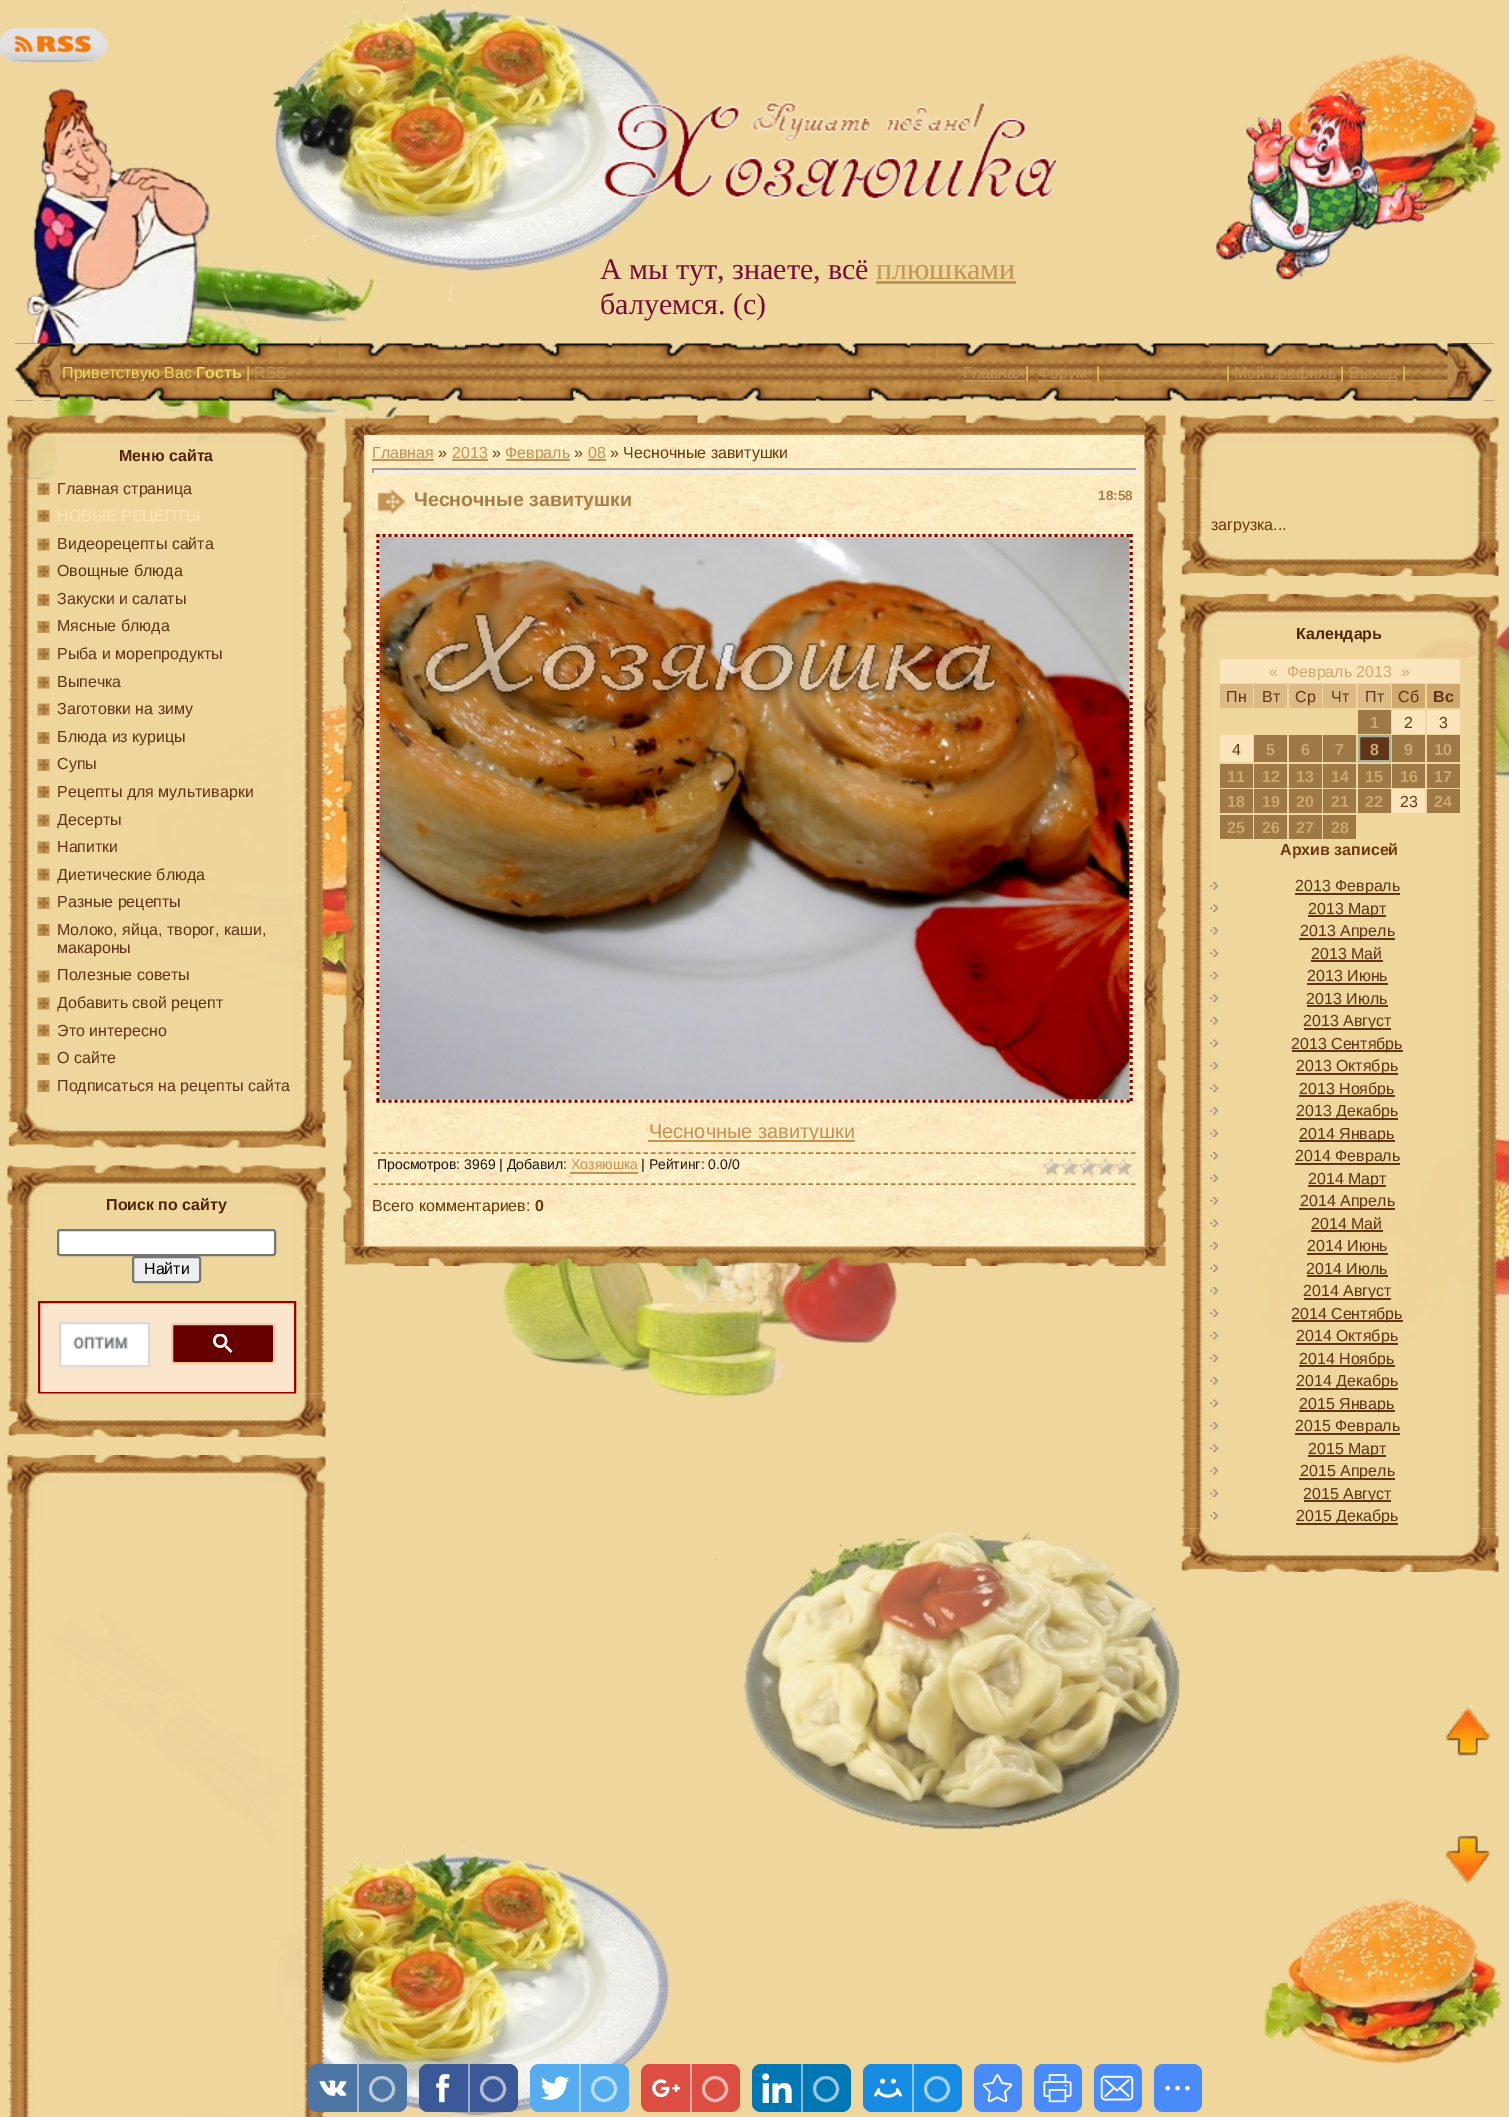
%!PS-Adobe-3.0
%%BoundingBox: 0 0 1509 2117
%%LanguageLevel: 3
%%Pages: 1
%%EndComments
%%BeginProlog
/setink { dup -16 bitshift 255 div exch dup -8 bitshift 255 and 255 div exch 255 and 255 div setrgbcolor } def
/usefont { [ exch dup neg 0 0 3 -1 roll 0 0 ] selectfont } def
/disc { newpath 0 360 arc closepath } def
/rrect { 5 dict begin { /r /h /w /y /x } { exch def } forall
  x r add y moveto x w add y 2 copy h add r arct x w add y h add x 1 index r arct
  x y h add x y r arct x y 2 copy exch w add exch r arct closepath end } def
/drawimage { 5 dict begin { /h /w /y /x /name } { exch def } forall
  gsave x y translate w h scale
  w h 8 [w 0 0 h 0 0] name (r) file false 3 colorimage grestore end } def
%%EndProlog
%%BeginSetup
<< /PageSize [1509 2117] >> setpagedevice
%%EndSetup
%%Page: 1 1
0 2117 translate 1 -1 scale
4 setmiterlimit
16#FFFFFF setink
0 0 1509 2117 rectfill
(img1.raw) 0 0 1509 2117 drawimage
(img2.raw) 0 27 109 36 drawimage
(img3.raw) 21 88 189 256 drawimage
(img4.raw) 1216 90 213 191 drawimage
(img5.raw) 603 101 453 99 drawimage
/LiberationSerif-Regular 30 usefont
16#770C39 setink
600 279 moveto (А мы тут, знаете, всё) show
16#C19355 setink
876 279 moveto (плюшками) show
876 281 140 3 rectfill
16#770C39 setink
600 314 moveto (балуемся. \(c\)) show
(img6.raw) 15 343 1479 58 drawimage
(img7.raw) 15 343 45 58 drawimage
/LiberationSans-Regular 16 usefont
16#EFD959 setink
62 378 moveto (Приветствую Вас) show
/LiberationSans-Bold 16 usefont
196 378 moveto (Гость) show
/LiberationSans-Regular 16 usefont
246 378 moveto (|) show
16#C19355 setink
254 378 moveto (RSS) show
255 380 32 2 rectfill
963 378 moveto (Главная) show
963 380 62 2 rectfill
16#EFD959 setink
1025 378 moveto (|) show
16#C19355 setink
1038 380 53 2 rectfill
1038 378 moveto (Форум) show
16#EFD959 setink
1096 378 moveto (|) show
16#C19355 setink
1104 380 117 2 rectfill
16#EFD959 setink
1226 378 moveto (|) show
16#C19355 setink
1235 380 102 2 rectfill
1234 378 moveto (Мой профиль) show
16#EFD959 setink
1340 378 moveto (|) show
16#C19355 setink
1349 380 49 2 rectfill
1349 378 moveto (Выход) show
16#EFD959 setink
1402 378 moveto (|) show
16#C19355 setink
1410 380 38 2 rectfill
(img8.raw) 1447 343 47 58 drawimage
(img9.raw) 7 415 319 64 drawimage
/LiberationSans-Bold 16 usefont
16#51250C setink
119 461 moveto (Меню сайта) show
(img10.raw) 8 478 317 626 drawimage
(img11.raw) 37 483 13 12 drawimage
/LiberationSans-Regular 16 usefont
16#613618 setink
57 494 moveto (Главная страница) show
(img12.raw) 37 510 13 12 drawimage
16#FFE6B5 setink
57 521 moveto (НОВЫЕ РЕЦЕПТЫ) show
(img13.raw) 37 538 13 13 drawimage
16#613618 setink
57 549 moveto (Видеорецепты сайта) show
(img14.raw) 37 565 13 13 drawimage
57 576 moveto (Овощные блюда) show
(img15.raw) 37 594 13 12 drawimage
57 604 moveto (Закуски и салаты) show
(img12.raw) 37 621 13 12 drawimage
57 631 moveto (Мясные блюда) show
(img15.raw) 37 648 13 12 drawimage
57 659 moveto (Рыба и морепродукты) show
(img16.raw) 37 676 13 13 drawimage
57 687 moveto (Выпечка) show
(img17.raw) 37 703 13 13 drawimage
57 714 moveto (Заготовки на зиму) show
(img18.raw) 37 732 13 12 drawimage
57 742 moveto (Блюда из курицы) show
(img19.raw) 37 759 13 12 drawimage
57 769 moveto (Супы) show
(img18.raw) 37 786 13 12 drawimage
57 797 moveto (Рецепты для мультиварки) show
(img20.raw) 37 814 13 13 drawimage
57 825 moveto (Десерты) show
(img21.raw) 37 841 13 13 drawimage
57 852 moveto (Напитки) show
(img20.raw) 37 868 13 13 drawimage
57 880 moveto (Диетические блюда) show
(img11.raw) 37 897 13 12 drawimage
57 907 moveto (Разные рецепты) show
(img12.raw) 37 924 13 12 drawimage
57 935 moveto (Молоко, яйца, творог, каши,) show
57 953 moveto (макароны) show
(img13.raw) 37 970 13 13 drawimage
57 980 moveto (Полезные советы) show
(img14.raw) 37 997 13 13 drawimage
57 1008 moveto (Добавить свой рецепт) show
(img13.raw) 37 1024 13 13 drawimage
57 1036 moveto (Это интересно) show
(img12.raw) 37 1053 13 12 drawimage
57 1063 moveto (О сайте) show
(img15.raw) 37 1080 13 12 drawimage
57 1091 moveto (Подписаться на рецепты сайта) show
(img22.raw) 8 1104 318 44 drawimage
(img23.raw) 7 1165 319 64 drawimage
/LiberationSans-Bold 16 usefont
16#51250C setink
106 1210 moveto (Поиск по сайту) show
(img24.raw) 8 1228 317 166 drawimage
16#FFFFFF setink
58 1230 217 25 2 rrect gsave fill grestore
16#767676 setink
2 setlinewidth
stroke
16#EFEFEF setink
133 1257 67 25 2 rrect gsave fill grestore
16#767676 setink
stroke
/LiberationSans-Regular 16 usefont
16#000000 setink
144 1274 moveto (Найти) show
16#FCE5CD setink
39 1302 moveto 295 1302 lineto 295 1393 lineto 39 1393 lineto closepath gsave fill grestore
16#990000 setink
stroke
16#FFFFFF setink
60 1323 moveto 149 1323 lineto 149 1366 lineto 60 1366 lineto closepath gsave fill grestore
16#D9D9D9 setink
stroke
(img25.raw) 73 1336 55 13 drawimage
16#660000 setink
172 1324 102 39 2 rrect gsave fill grestore
16#F9CB9C setink
stroke
(img26.raw) 213 1334 20 19 drawimage
(img27.raw) 8 1393 318 44 drawimage
(img28.raw) 7 1455 319 63 drawimage
(img29.raw) 8 1518 317 599 drawimage
(img31.raw) 364 415 781 20 drawimage
(img30.raw) 344 418 21 17 drawimage
(img32.raw) 1144 415 22 20 drawimage
(img33.raw) 343 435 22 812 drawimage
16#F2E7BA setink
365 435 780 812 rectfill
(img34.raw) 364 435 781 812 drawimage
16#C19355 setink
372 458 moveto (Главная) show
372 459 62 2 rectfill
16#6D390D setink
438 458 moveto (») show
16#C19355 setink
452 458 moveto (2013) show
452 459 36 2 rectfill
16#6D390D setink
492 458 moveto (») show
16#C19355 setink
506 459 64 2 rectfill
505 458 moveto (Февраль) show
16#6D390D setink
574 458 moveto (») show
16#C19355 setink
588 458 moveto (08) show
588 459 18 2 rectfill
16#6D390D setink
610 458 moveto (» Чесночные завитушки) show
[
    [372 468 765 2 16#9F9F9F]
    [1136 468 2 5 16#EEEEEE]
    [372 471 765 2 16#EEEEEE]
    [372 468 2 5 16#9F9F9F]
] { aload pop setink rectfill } forall
(img35.raw) 377 489 29 26 drawimage
/LiberationSans-Bold 19.5 usefont
16#A67F48 setink
414 506 moveto (Чесночные завитушки) show
/LiberationSans-Bold 13.5 usefont
1098 500 moveto (18:58) show
16#800000 setink
3 setlinewidth
[3 3] 0 setdash
376.5 535.5 moveto 1132.5 535.5 lineto stroke
1131 534 moveto 1131 1102.5 lineto stroke
376.5 1101 moveto 1132.5 1101 lineto stroke
378 534 moveto 378 1102.5 lineto stroke
(img36.raw) 379 537 751 563 drawimage
16#C19355 setink
648 1140 207 2 rectfill
/LiberationSans-Regular 20 usefont
649 1138 moveto (Чесночные завитушки) show
16#A67F48 setink
1.5 setlinewidth
[4.5 3] 0 setdash
373.5 1153 moveto 1135.5 1153 lineto stroke
373.5 1184 moveto 1135.5 1184 lineto stroke
/LiberationSans-Regular 14 usefont
16#1A1A1A setink
377 1169 moveto (Просмотров: 3969 | Добавил:) show
16#C19355 setink
571 1169 moveto (Хозяюшка) show
570 1172 68 2 rectfill
16#1A1A1A setink
641 1169 moveto (| Рейтинг: 0.0/0) show
(img37.raw) 1042 1158 91 18 drawimage
/LiberationSans-Regular 16 usefont
16#6D390D setink
372 1211 moveto (Всего комментариев:) show
/LiberationSans-Bold 16 usefont
535 1211 moveto (0) show
(img38.raw) 1144 435 22 812 drawimage
(img40.raw) 364 1246 781 20 drawimage
(img39.raw) 344 1246 21 19 drawimage
(img41.raw) 1144 1246 22 20 drawimage
(img42.raw) 1180 415 319 64 drawimage
(img43.raw) 1181 478 317 55 drawimage
/LiberationSans-Regular 16 usefont
1211 530 moveto (загрузка...) show
(img44.raw) 1181 532 318 44 drawimage
(img45.raw) 1180 594 319 63 drawimage
/LiberationSans-Bold 16 usefont
16#51250C setink
1296 639 moveto (Календарь) show
(img46.raw) 1181 657 317 872 drawimage
16#FBE5BC setink
1220 659 240 24 rectfill
/LiberationSans-Regular 16 usefont
16#CFA86E setink
[
    [(«) 1269 677]
    [(Февраль 2013) 1287 677]
    [(») 1401 677]
] { aload pop moveto show } forall
16#DDBB86 setink
1220 684 33 24 rectfill
16#613618 setink
1226 702 moveto (Пн) show
16#DDBB86 setink
1254 684 33 24 rectfill
16#613618 setink
1262 702 moveto (Вт) show
16#DDBB86 setink
1289 684 33 24 rectfill
16#613618 setink
1295 702 moveto (Ср) show
16#DDBB86 setink
1323 684 33 24 rectfill
16#613618 setink
1331 702 moveto (Чт) show
16#DDBB86 setink
1358 684 33 24 rectfill
16#613618 setink
1365 702 moveto (Пт) show
16#CFA86E setink
1392 684 33 24 rectfill
16#613618 setink
1398 702 moveto (Сб) show
16#CFA86E setink
1427 684 33 24 rectfill
/LiberationSans-Bold 16 usefont
16#613618 setink
1433 702 moveto (Вс) show
16#9E7945 setink
1358 710 33 24 rectfill
16#CFA86E setink
1370 728 moveto (1) show
16#FBE5BC setink
1392 710 33 24 rectfill
/LiberationSans-Regular 16 usefont
16#6D390D setink
1404 728 moveto (2) show
16#FBE5BC setink
1427 710 33 24 rectfill
16#6D390D setink
1439 728 moveto (3) show
16#FBE5BC setink
1220 735 33 27 rectfill
16#6D390D setink
1232 755 moveto (4) show
16#9E7945 setink
1254 735 33 27 rectfill
/LiberationSans-Bold 16 usefont
16#CFA86E setink
1266 755 moveto (5) show
16#9E7945 setink
1289 735 33 27 rectfill
16#CFA86E setink
1301 755 moveto (6) show
16#9E7945 setink
1323 735 33 27 rectfill
16#CFA86E setink
1335 755 moveto (7) show
16#613618 setink
1359 736 moveto 1390 736 lineto 1390 761 lineto 1359 761 lineto closepath gsave fill grestore
16#A6AB94 setink
2 setlinewidth
[] 0 setdash
stroke
16#CFA86E setink
1370 755 moveto (8) show
16#9E7945 setink
1392 735 33 27 rectfill
16#CFA86E setink
1404 755 moveto (9) show
16#9E7945 setink
1427 735 33 27 rectfill
16#CFA86E setink
1434 755 moveto (10) show
16#9E7945 setink
1220 764 33 24 rectfill
16#CFA86E setink
1227 782 moveto (11) show
16#9E7945 setink
1254 764 33 24 rectfill
16#CFA86E setink
1262 782 moveto (12) show
16#9E7945 setink
1289 764 33 24 rectfill
16#CFA86E setink
1296 782 moveto (13) show
16#9E7945 setink
1323 764 33 24 rectfill
16#CFA86E setink
1331 782 moveto (14) show
16#9E7945 setink
1358 764 33 24 rectfill
16#CFA86E setink
1365 782 moveto (15) show
16#9E7945 setink
1392 764 33 24 rectfill
16#CFA86E setink
1400 782 moveto (16) show
16#9E7945 setink
1427 764 33 24 rectfill
16#CFA86E setink
1434 782 moveto (17) show
16#9E7945 setink
1220 789 33 24 rectfill
16#CFA86E setink
1227 807 moveto (18) show
16#9E7945 setink
1254 789 33 24 rectfill
16#CFA86E setink
1262 807 moveto (19) show
16#9E7945 setink
1289 789 33 24 rectfill
16#CFA86E setink
1296 807 moveto (20) show
16#9E7945 setink
1323 789 33 24 rectfill
16#CFA86E setink
1331 807 moveto (21) show
16#9E7945 setink
1358 789 33 24 rectfill
16#CFA86E setink
1365 807 moveto (22) show
16#FBE5BC setink
1392 789 33 24 rectfill
/LiberationSans-Regular 16 usefont
16#6D390D setink
1400 807 moveto (23) show
16#9E7945 setink
1427 789 33 24 rectfill
/LiberationSans-Bold 16 usefont
16#CFA86E setink
1434 807 moveto (24) show
16#9E7945 setink
1220 815 33 24 rectfill
16#CFA86E setink
1227 833 moveto (25) show
16#9E7945 setink
1254 815 33 24 rectfill
16#CFA86E setink
1262 833 moveto (26) show
16#9E7945 setink
1289 815 33 24 rectfill
16#CFA86E setink
1296 833 moveto (27) show
16#9E7945 setink
1323 815 33 24 rectfill
16#CFA86E setink
1331 833 moveto (28) show
16#6D390D setink
1280 855 moveto (Архив записей) show
(img47.raw) 1210 882 8 8 drawimage
16#613618 setink
1295 893 105 2 rectfill
/LiberationSans-Regular 16 usefont
1295 891 moveto (2013 Февраль) show
(img48.raw) 1210 904 8 8 drawimage
1308 915 78 2 rectfill
1308 914 moveto (2013 Март) show
(img49.raw) 1210 927 8 8 drawimage
1299 938 96 2 rectfill
1300 936 moveto (2013 Апрель) show
(img50.raw) 1210 949 8 8 drawimage
1311 959 moveto (2013 Май) show
1311 960 72 2 rectfill
(img51.raw) 1210 972 8 8 drawimage
1307 981 moveto (2013 Июнь) show
1307 983 81 2 rectfill
(img48.raw) 1210 994 8 8 drawimage
1306 1004 moveto (2013 Июль) show
1307 1005 81 2 rectfill
(img52.raw) 1210 1017 8 8 drawimage
1304 1028 87 2 rectfill
1303 1026 moveto (2013 Август) show
(img53.raw) 1210 1039 8 8 drawimage
1292 1050 111 2 rectfill
1291 1049 moveto (2013 Сентябрь) show
(img54.raw) 1210 1062 8 8 drawimage
1296 1073 102 2 rectfill
1296 1071 moveto (2013 Октябрь) show
(img55.raw) 1210 1084 8 8 drawimage
1299 1095 96 2 rectfill
1299 1094 moveto (2013 Ноябрь) show
(img56.raw) 1210 1107 8 8 drawimage
1296 1118 102 2 rectfill
1296 1116 moveto (2013 Декабрь) show
(img57.raw) 1210 1129 8 8 drawimage
1299 1140 96 2 rectfill
1299 1139 moveto (2014 Январь) show
(img54.raw) 1210 1152 8 8 drawimage
1295 1163 105 2 rectfill
1295 1161 moveto (2014 Февраль) show
(img55.raw) 1210 1174 8 8 drawimage
1308 1185 78 2 rectfill
1308 1184 moveto (2014 Март) show
(img56.raw) 1210 1197 8 8 drawimage
1299 1208 96 2 rectfill
1300 1206 moveto (2014 Апрель) show
(img57.raw) 1210 1219 8 8 drawimage
1311 1229 moveto (2014 Май) show
1311 1230 72 2 rectfill
(img54.raw) 1210 1242 8 8 drawimage
1307 1251 moveto (2014 Июнь) show
1307 1253 81 2 rectfill
(img55.raw) 1210 1264 8 8 drawimage
1306 1274 moveto (2014 Июль) show
1307 1275 81 2 rectfill
(img56.raw) 1210 1287 8 8 drawimage
1304 1298 87 2 rectfill
1303 1296 moveto (2014 Август) show
(img57.raw) 1210 1309 8 8 drawimage
1292 1320 111 2 rectfill
1291 1319 moveto (2014 Сентябрь) show
(img54.raw) 1210 1332 8 8 drawimage
1296 1343 102 2 rectfill
1296 1341 moveto (2014 Октябрь) show
(img55.raw) 1210 1354 8 8 drawimage
1299 1365 96 2 rectfill
1299 1364 moveto (2014 Ноябрь) show
(img56.raw) 1210 1377 8 8 drawimage
1296 1388 102 2 rectfill
1296 1386 moveto (2014 Декабрь) show
(img57.raw) 1210 1399 8 8 drawimage
1299 1410 96 2 rectfill
1299 1409 moveto (2015 Январь) show
(img54.raw) 1210 1422 8 8 drawimage
1295 1433 105 2 rectfill
1295 1431 moveto (2015 Февраль) show
(img58.raw) 1210 1444 8 8 drawimage
1308 1455 78 2 rectfill
1308 1454 moveto (2015 Март) show
(img59.raw) 1210 1467 8 8 drawimage
1299 1478 96 2 rectfill
1300 1476 moveto (2015 Апрель) show
(img60.raw) 1210 1489 8 8 drawimage
1304 1500 87 2 rectfill
1303 1499 moveto (2015 Август) show
(img61.raw) 1210 1512 8 8 drawimage
1296 1523 102 2 rectfill
1296 1521 moveto (2015 Декабрь) show
(img62.raw) 1181 1528 318 44 drawimage
(img63.raw) 1445 1705 45 51 drawimage
(img64.raw) 1445 1835 45 51 drawimage
16#4D75A3 setink
308 2064 99 48 9 rrect fill
(img65.raw) 319 2080 28 16 drawimage
16#A6BAD1 setink
357 2064 2 48 rectfill
16#B8C8DA setink
3 setlinewidth
382 2089 11.5 disc stroke
16#3B5998 setink
419 2064 99 48 9 rrect fill
(img66.raw) 436 2074 14 29 drawimage
16#9DACCC setink
468 2064 2 48 rectfill
16#B1BDD6 setink
493 2089 11.5 disc stroke
16#55ACEE setink
530 2064 99 48 9 rrect fill
(img67.raw) 540 2076 30 24 drawimage
16#AAD6F7 setink
579 2064 2 48 rectfill
16#BBDEF8 setink
604 2089 11.5 disc stroke
16#DC4E41 setink
641 2064 99 48 9 rrect fill
(img68.raw) 652 2079 28 18 drawimage
16#EEA7A0 setink
690 2064 2 48 rectfill
16#F1B8B3 setink
715 2089 11.5 disc stroke
16#0077B5 setink
752 2064 99 48 9 rrect fill
(img69.raw) 762 2073 30 30 drawimage
16#80BBDA setink
801 2064 2 48 rectfill
16#99C9E1 setink
826 2089 11.5 disc stroke
16#168DE2 setink
863 2064 99 48 9 rrect fill
(img70.raw) 874 2078 28 20 drawimage
16#8BC6F1 setink
912 2064 2 48 rectfill
16#A2D1F3 setink
937 2089 11.5 disc stroke
16#498BFA setink
974 2064 48 48 9 rrect fill
(img71.raw) 982 2074 31 29 drawimage
1034 2064 48 48 9 rrect fill
(img72.raw) 1043 2074 29 29 drawimage
1094 2064 48 48 9 rrect fill
(img73.raw) 1100 2075 34 26 drawimage
1154 2064 48 48 9 rrect fill
(img74.raw) 1165 2085 25 6 drawimage
showpage
%%EOF
